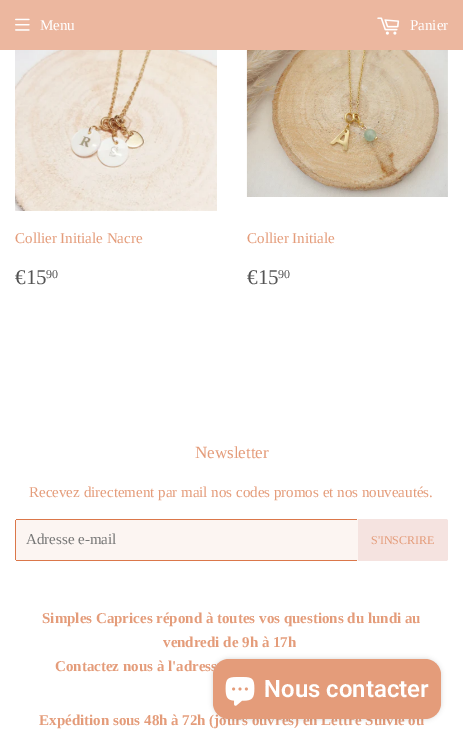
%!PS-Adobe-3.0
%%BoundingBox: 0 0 463 740
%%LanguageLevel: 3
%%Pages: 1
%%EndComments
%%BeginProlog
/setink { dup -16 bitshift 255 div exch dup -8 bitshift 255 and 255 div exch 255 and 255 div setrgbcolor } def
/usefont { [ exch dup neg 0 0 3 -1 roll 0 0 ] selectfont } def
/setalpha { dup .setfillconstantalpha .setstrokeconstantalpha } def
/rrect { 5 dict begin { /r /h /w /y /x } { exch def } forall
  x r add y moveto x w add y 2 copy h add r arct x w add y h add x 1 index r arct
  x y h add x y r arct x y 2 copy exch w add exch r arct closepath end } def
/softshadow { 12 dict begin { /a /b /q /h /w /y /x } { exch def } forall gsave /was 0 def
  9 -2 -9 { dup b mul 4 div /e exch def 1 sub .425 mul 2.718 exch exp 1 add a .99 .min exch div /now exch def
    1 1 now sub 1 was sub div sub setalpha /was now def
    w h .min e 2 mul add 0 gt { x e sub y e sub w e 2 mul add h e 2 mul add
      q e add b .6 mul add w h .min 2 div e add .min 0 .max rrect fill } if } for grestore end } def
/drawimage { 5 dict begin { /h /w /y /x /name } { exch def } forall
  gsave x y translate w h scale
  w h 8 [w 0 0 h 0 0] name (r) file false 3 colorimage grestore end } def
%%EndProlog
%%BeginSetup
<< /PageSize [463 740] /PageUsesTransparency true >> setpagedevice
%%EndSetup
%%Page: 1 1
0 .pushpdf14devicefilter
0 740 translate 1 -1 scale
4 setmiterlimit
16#FFFFFF setink
0 0 463 740 rectfill
16#ECB79F setink
0 0 463 50 rectfill
(img1.raw) 15 18 15 13 drawimage
/LiberationSerif-Regular 15 usefont
16#FFFFFF setink
40 30 moveto (Menu) show
(img2.raw) 377 17 23 18 drawimage
410 30 moveto (Panier) show
(img3.raw) 15 50 202 161 drawimage
16#E49C7A setink
15 243 moveto (Collier Initiale Nacre) show
/LiberationSerif-Regular 21 usefont
16#545454 setink
15 284 moveto (€15) show
/LiberationSerif-Regular 12 usefont
46 278 moveto (90) show
(img4.raw) 246 50 202 147 drawimage
/LiberationSerif-Regular 15 usefont
16#E49C7A setink
247 243 moveto (Collier Initiale) show
/LiberationSerif-Regular 21 usefont
16#545454 setink
247 284 moveto (€15) show
/LiberationSerif-Regular 12 usefont
278 278 moveto (90) show
/LiberationSerif-Regular 17 usefont
16#E49C7A setink
195 458 moveto (Newsletter) show
/LiberationSerif-Regular 15 usefont
29 497 moveto (Recevez directement par mail nos codes promos et nos nouveautés.) show
16#FCF5F2 setink
15 519 343 42 2 rrect fill
[
    [16 519 341 1 16#DB774A]
    [16 560 341 1 16#DB774A]
    [15 520 1 40 16#DB774A]
] { aload pop setink rectfill } forall
16#757575 setink
26 544 moveto (Adresse e-mail) show
16#F5E3E0 setink
358 519 moveto 446 519 lineto 447 519 448 520 448 521 curveto 448 559 lineto 448 560 447 561 446 561 curveto 358 561 lineto closepath fill
/LiberationSerif-Regular 12 usefont
16#E49C7A setink
371 544 moveto (S'INSCRIRE) show
/LiberationSerif-Bold 15 usefont
[
    [(Simples Caprices répond à toutes vos questions du lundi au) 42 623]
    [(vendredi de 9h à 17h) 163 647]
    [(Contactez nous à l'adress) 55 671]
    [(Expédition sous 48h à 72h \(jours ouvrés\) en Lettre Suivie ou) 39 725]
] { aload pop moveto show } forall
16#000000 setink
213 659 228 60 16 2.5 0.15 softshadow
16#E49C7A setink
213 659 228 60 16 rrect fill
(img5.raw) 225 677 30 29 drawimage
/Roboto-SemiBold 24 usefont
16#FFFFFF setink
264 697 moveto (Nous contacter) show
.poppdf14devicefilter showpage
%%EOF
